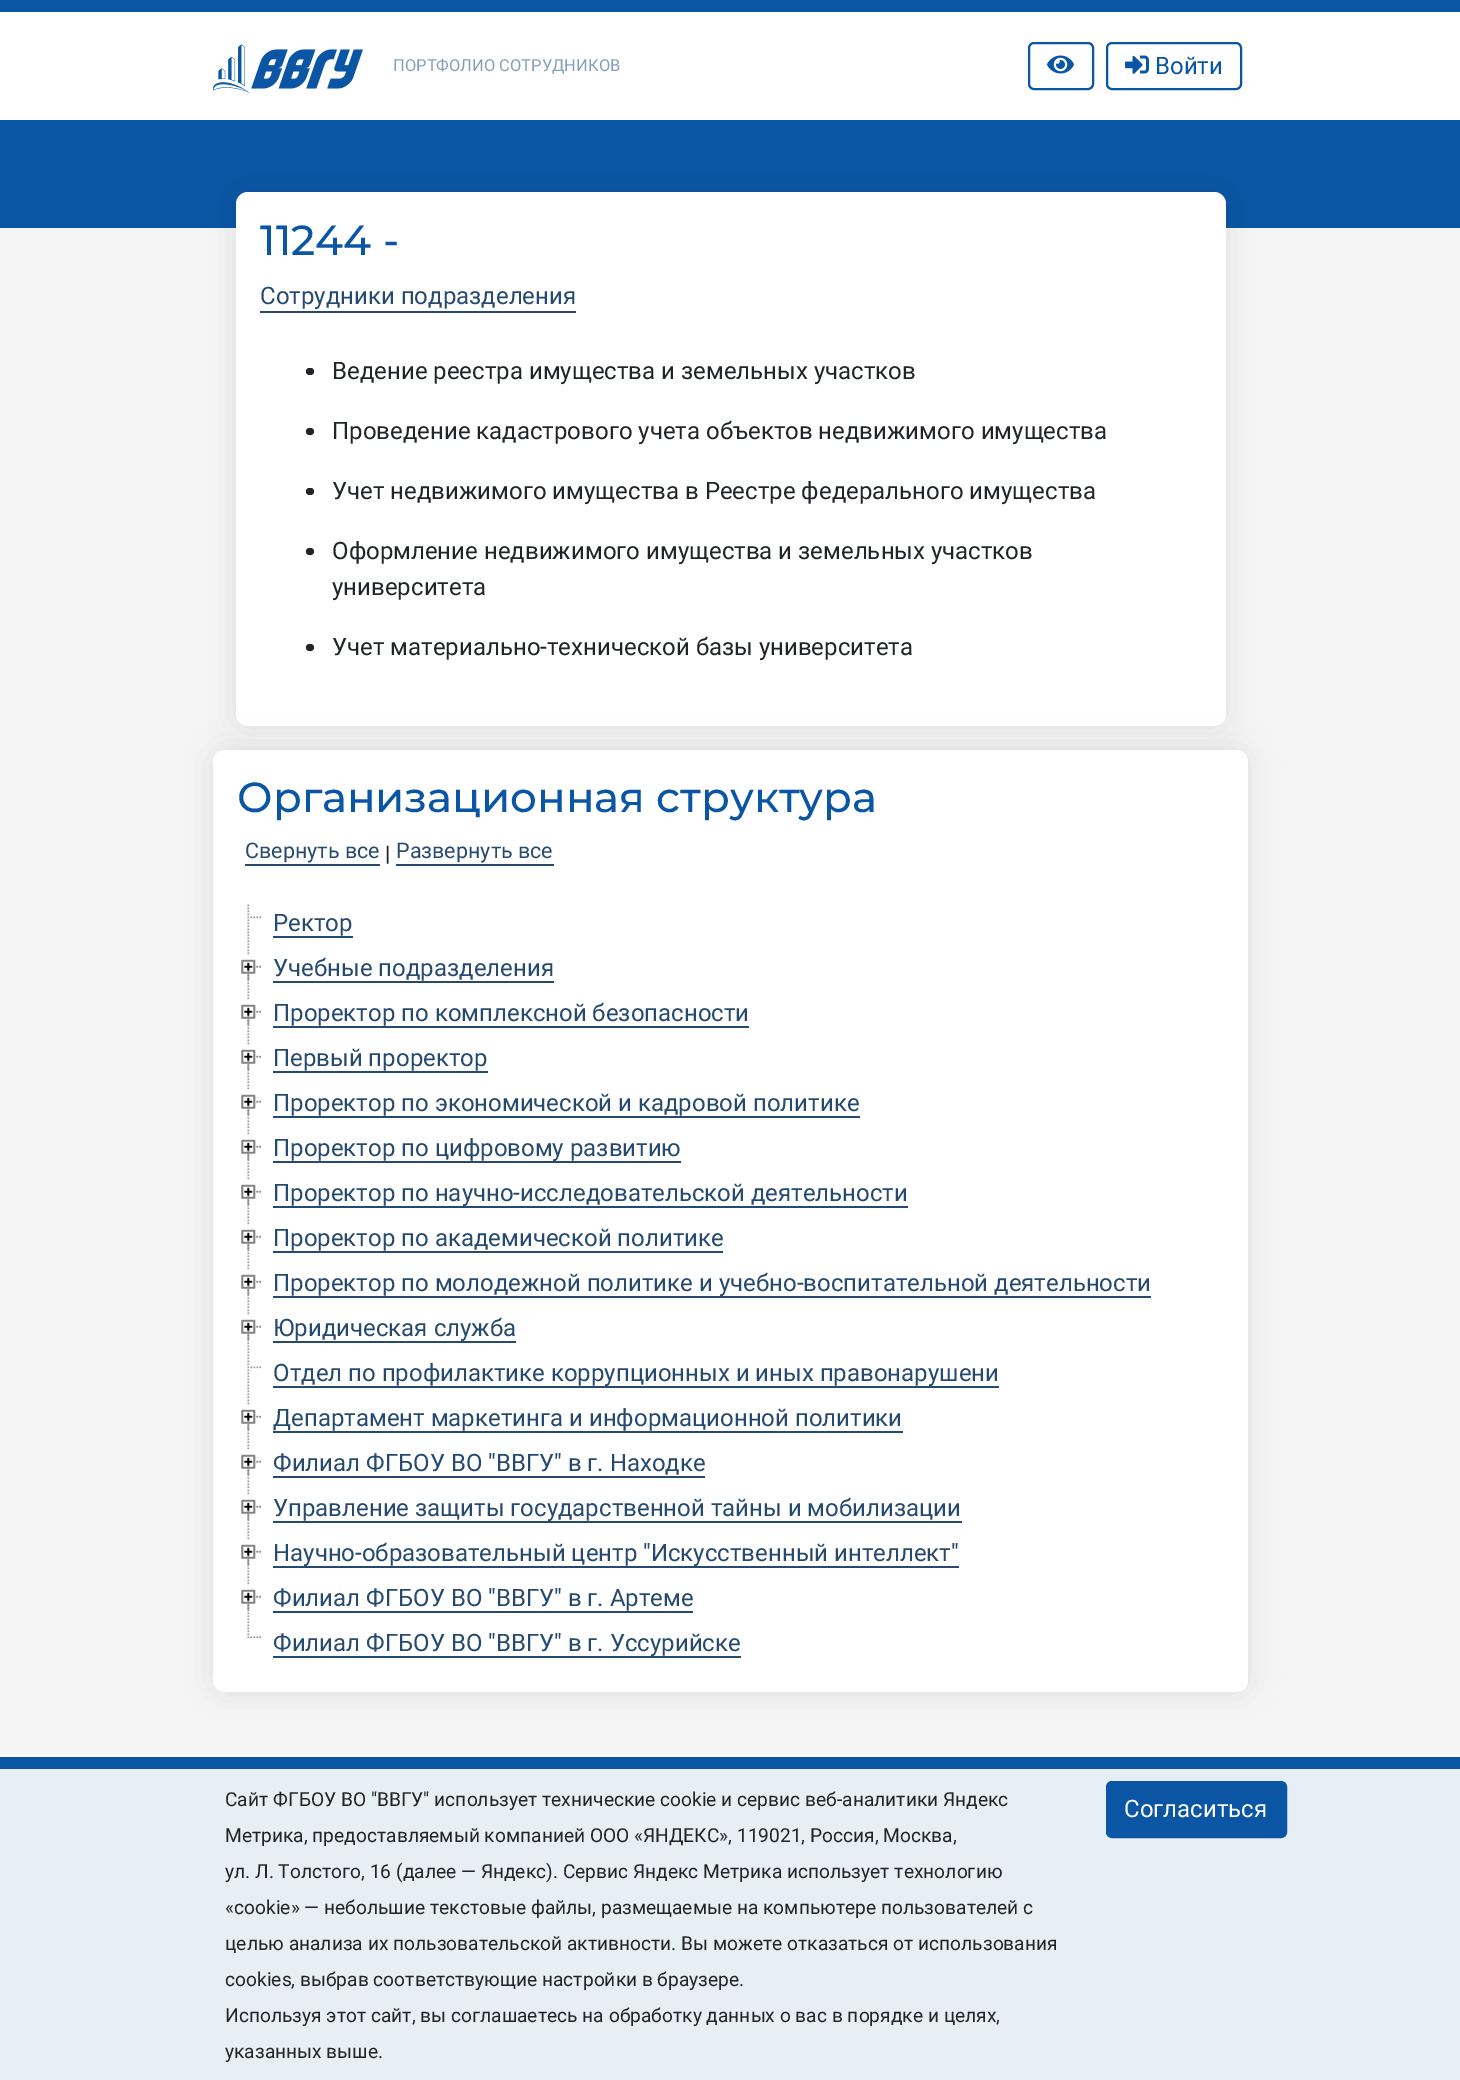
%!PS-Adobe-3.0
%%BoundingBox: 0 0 1460 2080
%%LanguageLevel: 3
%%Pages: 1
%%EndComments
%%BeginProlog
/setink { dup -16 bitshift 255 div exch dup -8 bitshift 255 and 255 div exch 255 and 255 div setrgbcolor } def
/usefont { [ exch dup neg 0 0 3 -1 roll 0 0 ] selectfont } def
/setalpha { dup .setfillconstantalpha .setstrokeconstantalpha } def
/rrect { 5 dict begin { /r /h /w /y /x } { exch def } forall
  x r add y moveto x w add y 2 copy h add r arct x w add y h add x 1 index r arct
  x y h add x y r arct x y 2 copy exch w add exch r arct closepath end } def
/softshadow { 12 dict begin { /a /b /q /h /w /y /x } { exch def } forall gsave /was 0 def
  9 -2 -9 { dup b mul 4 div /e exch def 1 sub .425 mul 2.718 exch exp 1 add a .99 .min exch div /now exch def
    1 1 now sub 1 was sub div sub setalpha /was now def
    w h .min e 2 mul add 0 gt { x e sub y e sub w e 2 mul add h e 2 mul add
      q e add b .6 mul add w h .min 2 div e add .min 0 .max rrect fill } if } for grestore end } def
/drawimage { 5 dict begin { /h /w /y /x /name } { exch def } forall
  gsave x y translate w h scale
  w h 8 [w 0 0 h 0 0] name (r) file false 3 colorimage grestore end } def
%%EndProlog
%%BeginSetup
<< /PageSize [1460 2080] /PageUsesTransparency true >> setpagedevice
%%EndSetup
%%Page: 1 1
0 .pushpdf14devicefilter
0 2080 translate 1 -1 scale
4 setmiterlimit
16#F5F5F5 setink
0 0 1460 2080 rectfill
16#0A56A4 setink
0 0 1460 12 rectfill
16#FFFFFF setink
0 12 1460 108 rectfill
(img1.raw) 213 44 150 50 drawimage
/Roboto-Regular 16.5 usefont
16#859FB9 setink
393 71 moveto (ПОРТФОЛИО СОТРУДНИКОВ) show
16#0A56A4 setink
2 setlinewidth
1029 43 64 46 5 rrect stroke
(img2.raw) 1047 55 27 19 drawimage
1107 43 134 46 5 rrect stroke
(img3.raw) 1125 55 24 19 drawimage
/Roboto-Regular 24 usefont
1155 74 moveto (Войти) show
16#0A56A5 setink
0 120 1460 108 rectfill
16#000000 setink
236 192 990 534 12 15 0.09 softshadow
16#FFFFFF setink
236 192 990 534 12 rrect fill
/Montserrat-Medium 42 usefont
16#0A56A4 setink
260 255 moveto (11244 -) show
/Roboto-Regular 24 usefont
16#264A6F setink
260 304 moveto (Сотрудники подразделения) show
260 311 316 2 rectfill
16#212529 setink
306 368 8 7 3.5 rrect fill
332 379 moveto (Ведение реестра имущества и земельных участков) show
306 428 8 7 3.5 rrect fill
332 439 moveto (Проведение кадастрового учета объектов недвижимого имущества) show
306 488 8 7 3.5 rrect fill
332 499 moveto (Учет недвижимого имущества в Реестре федерального имущества) show
306 548 8 7 3.5 rrect fill
332 559 moveto (Оформление недвижимого имущества и земельных участков) show
332 595 moveto (университета) show
306 644 8 7 3.5 rrect fill
332 655 moveto (Учет материально-технической базы университета) show
16#000000 setink
213 750 1035 942 12 15 0.09 softshadow
16#FFFFFF setink
213 750 1035 942 12 rrect fill
/Montserrat-Medium 42 usefont
16#0A56A4 setink
237 812 moveto (Организационная структура) show
/Roboto-Regular 21.5 usefont
16#264A6F setink
245 858 moveto (Свернуть все) show
245 864 135 2 rectfill
16#212529 setink
385 861 moveto (|) show
16#264A6F setink
396 858 moveto (Развернуть все) show
396 864 158 2 rectfill
(img4.raw) 247 904 14 44 drawimage
/Roboto-Regular 24 usefont
273 931 moveto (Ректор) show
273 936 80 2 rectfill
(img5.raw) 247 949 3 44 drawimage
(img6.raw) 241 959 20 21 drawimage
273 976 moveto (Учебные подразделения) show
273 981 281 2 rectfill
(img7.raw) 241 959 20 21 drawimage
(img5.raw) 247 994 3 44 drawimage
(img6.raw) 241 1004 20 21 drawimage
273 1021 moveto (Проректор по комплексной безопасности) show
273 1026 476 2 rectfill
(img7.raw) 241 1004 20 21 drawimage
(img5.raw) 247 1039 3 44 drawimage
(img6.raw) 241 1049 20 21 drawimage
273 1066 moveto (Первый проректор) show
273 1071 215 2 rectfill
(img7.raw) 241 1049 20 21 drawimage
(img5.raw) 247 1084 3 44 drawimage
(img6.raw) 241 1094 20 21 drawimage
273 1111 moveto (Проректор по экономической и кадровой политике) show
273 1116 587 2 rectfill
(img7.raw) 241 1094 20 21 drawimage
(img5.raw) 247 1129 3 44 drawimage
(img6.raw) 241 1139 20 21 drawimage
273 1161 408 2 rectfill
273 1156 moveto (Проректор по цифровому развитию) show
(img7.raw) 241 1139 20 21 drawimage
(img5.raw) 247 1174 3 44 drawimage
(img6.raw) 241 1184 20 21 drawimage
273 1206 635 2 rectfill
273 1201 moveto (Проректор по научно-исследовательской деятельности) show
(img7.raw) 241 1184 20 21 drawimage
(img5.raw) 247 1219 3 44 drawimage
(img6.raw) 241 1229 20 21 drawimage
273 1246 moveto (Проректор по академической политике) show
273 1251 450 2 rectfill
(img7.raw) 241 1229 20 21 drawimage
(img5.raw) 247 1264 3 44 drawimage
(img6.raw) 241 1274 20 21 drawimage
273 1296 878 2 rectfill
273 1291 moveto (Проректор по молодежной политике и учебно-воспитательной деятельности) show
(img7.raw) 241 1274 20 21 drawimage
(img5.raw) 247 1309 3 44 drawimage
(img6.raw) 241 1319 20 21 drawimage
273 1341 243 2 rectfill
273 1336 moveto (Юридическая служба) show
(img7.raw) 241 1319 20 21 drawimage
(img4.raw) 247 1354 14 44 drawimage
273 1386 726 2 rectfill
273 1381 moveto (Отдел по профилактике коррупционных и иных правонарушени) show
(img5.raw) 247 1399 3 44 drawimage
(img6.raw) 241 1409 20 21 drawimage
273 1426 moveto (Департамент маркетинга и информационной политики) show
273 1431 630 2 rectfill
(img7.raw) 241 1409 20 21 drawimage
(img5.raw) 247 1444 3 44 drawimage
(img6.raw) 241 1454 20 21 drawimage
273 1471 moveto (Филиал ФГБОУ ВО "ВВГУ" в г. Находке) show
273 1476 432 2 rectfill
(img7.raw) 241 1454 20 21 drawimage
(img5.raw) 247 1489 3 44 drawimage
(img6.raw) 241 1499 20 21 drawimage
273 1521 689 2 rectfill
273 1516 moveto (Управление защиты государственной тайны и мобилизации) show
(img7.raw) 241 1499 20 21 drawimage
(img5.raw) 247 1534 3 44 drawimage
(img6.raw) 241 1544 20 21 drawimage
273 1566 686 2 rectfill
273 1561 moveto (Научно-образовательный центр "Искусственный интеллект") show
(img7.raw) 241 1544 20 21 drawimage
(img5.raw) 247 1579 3 44 drawimage
(img6.raw) 241 1589 20 21 drawimage
273 1606 moveto (Филиал ФГБОУ ВО "ВВГУ" в г. Артеме) show
273 1611 420 2 rectfill
(img7.raw) 241 1589 20 21 drawimage
(img8.raw) 247 1624 14 14 drawimage
273 1656 468 2 rectfill
273 1651 moveto (Филиал ФГБОУ ВО "ВВГУ" в г. Уссурийске) show
16#E6EEF6 setink
0 1769 1460 311 rectfill
16#0A56A4 setink
0 1757 1460 12 rectfill
/Roboto-Regular 19.2 usefont
16#212529 setink
[
    [(Cайт ФГБОУ ВО "ВВГУ" использует технические cookie и сервис веб-аналитики Яндекс) 225 1806]
    [(Метрика, предоставляемый компанией ООО «ЯНДЕКС», 119021, Россия, Москва,) 225 1842]
    [(ул. Л. Толстого, 16 \(далее — Яндекс\). Сервис Яндекс Метрика использует технологию) 225 1878]
    [(«cookie» — небольшие текстовые файлы, размещаемые на компьютере пользователей с) 225 1914]
    [(целью анализа их пользовательской активности. Вы можете отказаться от использования) 225 1950]
    [(cookies, выбрав соответствующие настройки в браузере.) 225 1986]
    [(Используя этот сайт, вы соглашаетесь на обработку данных о вас в порядке и целях,) 225 2022]
    [(указанных выше.) 225 2058]
] { aload pop moveto show } forall
16#0A56A4 setink
1107 1782 179 55 5 rrect gsave fill grestore
stroke
/Roboto-Regular 24 usefont
16#FFFFFF setink
1124 1817 moveto (Согласиться) show
.poppdf14devicefilter showpage
%%EOF
